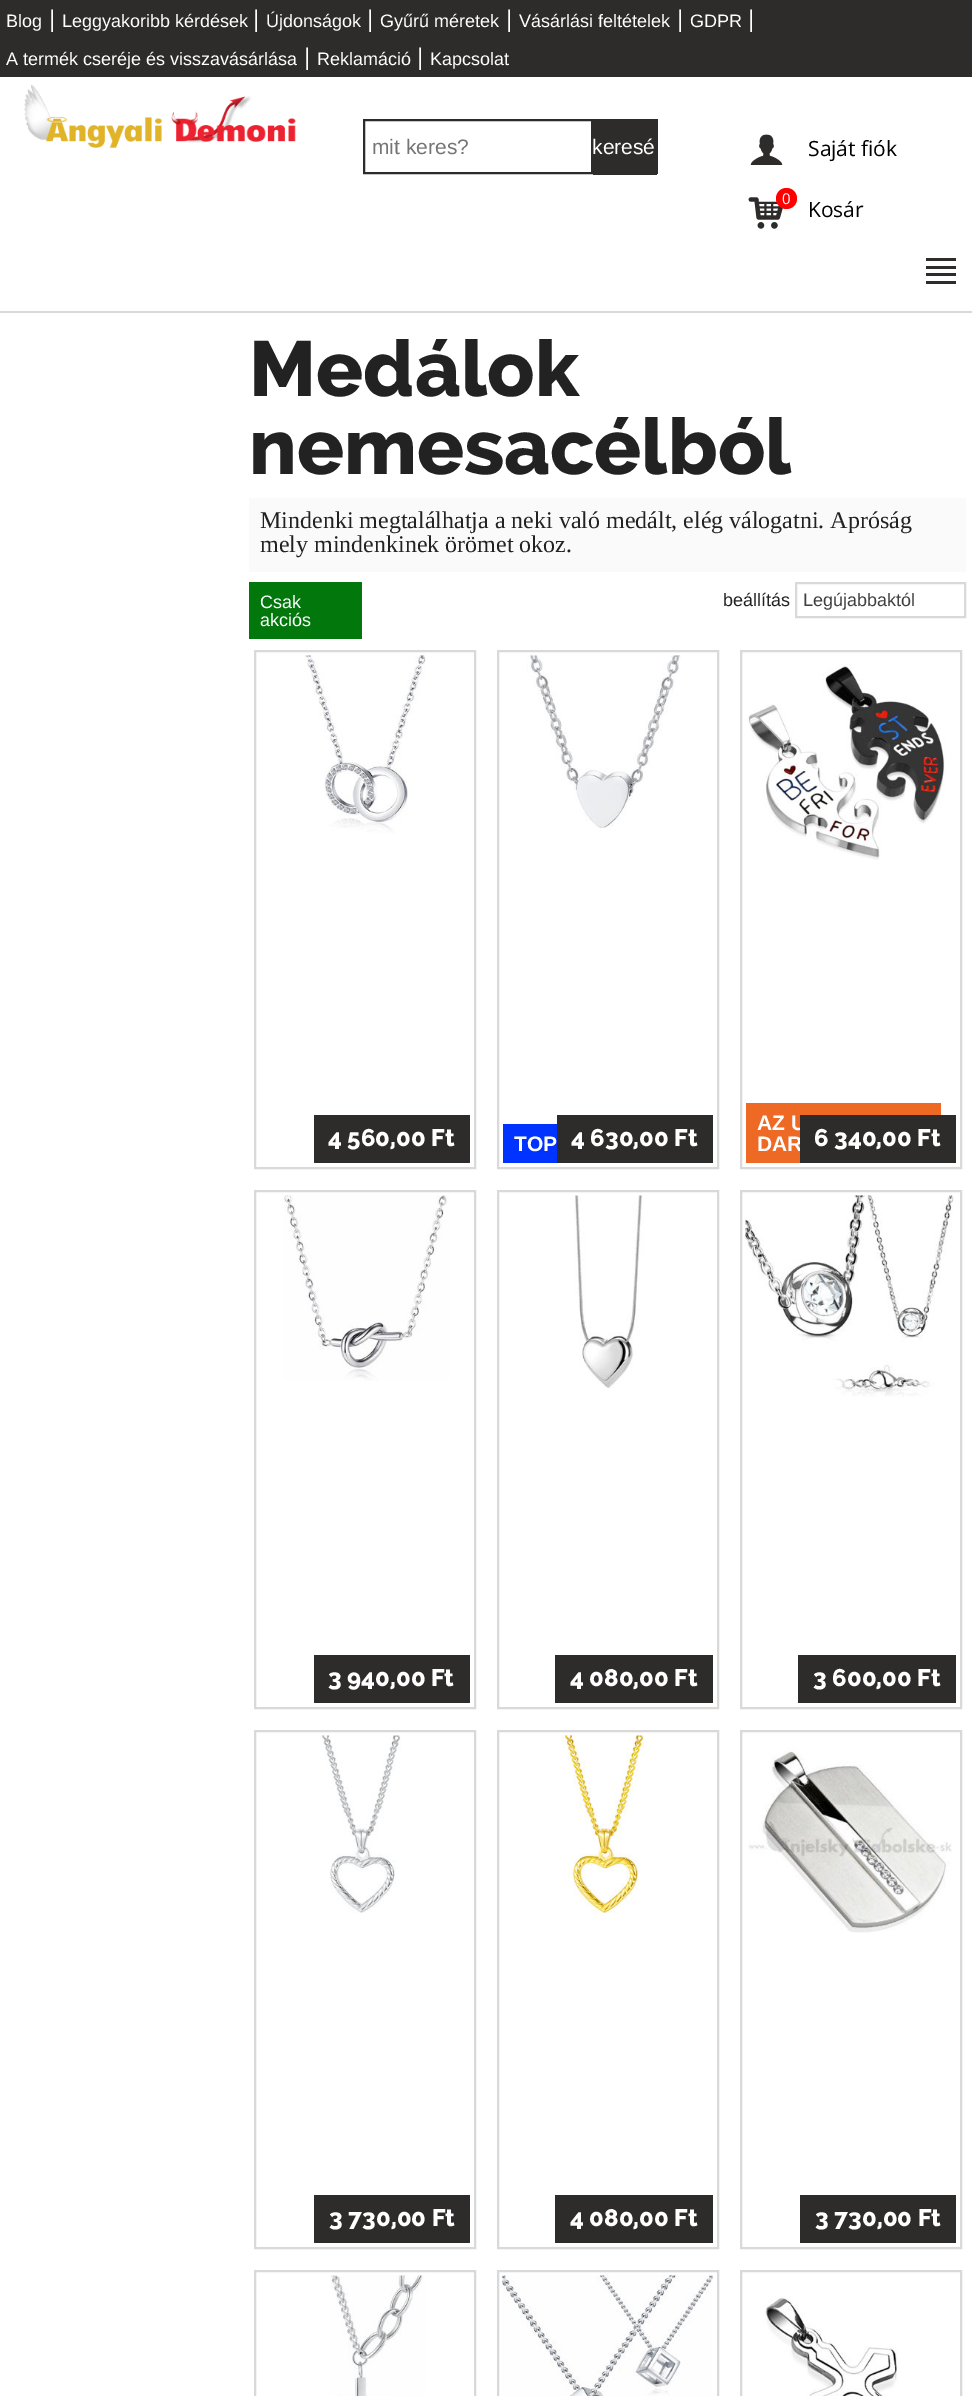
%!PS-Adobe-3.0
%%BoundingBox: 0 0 972 2396
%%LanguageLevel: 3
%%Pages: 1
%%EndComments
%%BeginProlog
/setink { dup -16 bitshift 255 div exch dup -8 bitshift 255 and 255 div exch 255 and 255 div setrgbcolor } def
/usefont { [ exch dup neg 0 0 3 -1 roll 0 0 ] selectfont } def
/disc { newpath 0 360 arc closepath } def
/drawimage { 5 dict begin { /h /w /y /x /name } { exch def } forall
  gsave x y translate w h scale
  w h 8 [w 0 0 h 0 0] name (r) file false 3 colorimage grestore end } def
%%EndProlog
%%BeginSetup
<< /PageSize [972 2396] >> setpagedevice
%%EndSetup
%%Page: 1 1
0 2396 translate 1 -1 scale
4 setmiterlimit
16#FFFFFF setink
0 0 972 2396 rectfill
16#2E2B2B setink
0 0 972 77 rectfill
/LiberationSans-Regular 18 usefont
16#FFFFFF setink
6 27 moveto (Blog) show
/LiberationSans-Regular 24 usefont
49 27 moveto (|) show
/LiberationSans-Regular 18 usefont
62 27 moveto (Leggyakoribb kérdések) show
/LiberationSans-Regular 24 usefont
253 27 moveto (|) show
/LiberationSans-Regular 18 usefont
266 27 moveto (Újdonságok) show
/LiberationSans-Regular 24 usefont
367 27 moveto (|) show
/LiberationSans-Regular 18 usefont
380 27 moveto (Gyűrű méretek) show
/LiberationSans-Regular 24 usefont
506 27 moveto (|) show
/LiberationSans-Regular 18 usefont
519 27 moveto (Vásárlási feltételek) show
/LiberationSans-Regular 24 usefont
677 27 moveto (|) show
/LiberationSans-Regular 18 usefont
690 27 moveto (GDPR) show
/LiberationSans-Regular 24 usefont
748 27 moveto (|) show
/LiberationSans-Regular 18 usefont
6 65 moveto (A termék cseréje és visszavásárlása) show
/LiberationSans-Regular 24 usefont
304 65 moveto (|) show
/LiberationSans-Regular 18 usefont
317 65 moveto (Reklamáció) show
/LiberationSans-Regular 24 usefont
417 65 moveto (|) show
/LiberationSans-Regular 18 usefont
430 65 moveto (Kapcsolat) show
(img1.raw) 24 85 272 63 drawimage
16#2E2B2B setink
2 setlinewidth
364 120 228 53 rectstroke
/LiberationSans-Regular 21 usefont
16#757575 setink
372 154 moveto (mit keres?) show
[
    [593 119 63 54 16#2E2B2B]
    [656 119 2 55 16#2E2B2B]
    [593 173 64 2 16#2E2B2B]
] { aload pop setink rectfill } forall
16#FFFFFF setink
592 154 moveto (keresé) show
(img2.raw) 750 134 33 31 drawimage
/OpenSans-Regular 21 usefont
16#000000 setink
808 156 moveto (Saját fiók) show
(img3.raw) 748 197 35 32 drawimage
16#FF0000 setink
786.5 198.5 10.5 disc fill
/OpenSans-Regular 15 usefont
16#FFFFFF setink
782 204 moveto (0) show
/OpenSans-Regular 21 usefont
16#000000 setink
808 217 moveto (Kosár) show
[
    [926 258 30 3 16#2E2B2B]
    [926 266 30 3 16#2E2B2B]
    [926 273 30 3 16#2E2B2B]
    [926 281 30 3 16#2E2B2B]
    [0 311 972 2 16#D9D9D9]
] { aload pop setink rectfill } forall
/Raleway-ExtraBold 78 usefont
16#222222 setink
249 396 moveto (Medálok) show
249 474 moveto (nemesacélból) show
16#FAFAFA setink
249 498 717 74 rectfill
/LiberationSerif-Regular 24 usefont
16#222222 setink
260 528 moveto (Mindenki megtalálhatja a neki való medált, elég válogatni. Apróság) show
260 552 moveto (mely mindenkinek örömet okoz.) show
16#02770B setink
249 582 113 57 rectfill
/LiberationSans-Regular 18 usefont
16#FFFFFF setink
260 608 moveto (Csak) show
260 626 moveto (akciós) show
16#222222 setink
723 606 moveto (beállítás) show
16#D9D9D9 setink
796 583 169 34 rectstroke
16#404040 setink
803 606 moveto (Legújabbaktól) show
16#D9D9D9 setink
255 651 220 517 rectstroke
(img4.raw) 305 655 121 178 drawimage
16#2E2B2B setink
314 1115 156 48 rectfill
/Raleway-ExtraBold 24 usefont
16#FFFFFF setink
328 1146 moveto (4 560,00 Ft) show
16#D9D9D9 setink
498 651 220 517 rectstroke
(img5.raw) 526 655 155 173 drawimage
16#0033FF setink
503 1124 54 39 rectfill
/LiberationSans-Bold 21 usefont
16#FFFFFF setink
514 1151 moveto (TOP) show
16#2E2B2B setink
557 1115 156 48 rectfill
/Raleway-ExtraBold 24 usefont
16#FFFFFF setink
571 1146 moveto (4 630,00 Ft) show
16#D9D9D9 setink
741 651 220 517 rectstroke
(img6.raw) 748 664 198 196 drawimage
16#EE6924 setink
746 1103 195 60 rectfill
/LiberationSans-Bold 21 usefont
16#FFFFFF setink
757 1130 moveto (AZ U) show
757 1151 moveto (DAR) show
16#2E2B2B setink
800 1115 156 48 rectfill
/Raleway-ExtraBold 24 usefont
16#FFFFFF setink
814 1146 moveto (6 340,00 Ft) show
16#D9D9D9 setink
255 1191 220 517 rectstroke
(img7.raw) 283 1195 166 186 drawimage
16#2E2B2B setink
314 1655 156 48 rectfill
16#FFFFFF setink
328 1686 moveto (3 940,00 Ft) show
16#D9D9D9 setink
498 1191 220 517 rectstroke
(img8.raw) 574 1195 70 195 drawimage
16#2E2B2B setink
555 1655 158 48 rectfill
16#FFFFFF setink
570 1686 moveto (4 080,00 Ft) show
16#D9D9D9 setink
741 1191 220 517 rectstroke
(img9.raw) 745 1195 209 202 drawimage
16#2E2B2B setink
798 1655 158 48 rectfill
16#FFFFFF setink
813 1686 moveto (3 600,00 Ft) show
16#D9D9D9 setink
255 1731 220 517 rectstroke
(img10.raw) 320 1735 81 178 drawimage
16#2E2B2B setink
314 2195 156 48 rectfill
16#FFFFFF setink
329 2226 moveto (3 730,00 Ft) show
16#D9D9D9 setink
498 1731 220 517 rectstroke
(img11.raw) 561 1735 84 178 drawimage
16#2E2B2B setink
555 2195 158 48 rectfill
16#FFFFFF setink
570 2226 moveto (4 080,00 Ft) show
16#D9D9D9 setink
741 1731 220 517 rectstroke
(img12.raw) 748 1748 204 185 drawimage
16#2E2B2B setink
800 2195 156 48 rectfill
16#FFFFFF setink
815 2226 moveto (3 730,00 Ft) show
16#D9D9D9 setink
255 2271 220 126 rectstroke
(img13.raw) 330 2275 95 121 drawimage
498 2271 220 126 rectstroke
(img14.raw) 502 2275 211 121 drawimage
741 2271 220 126 rectstroke
(img15.raw) 763 2296 135 100 drawimage
showpage
%%EOF
